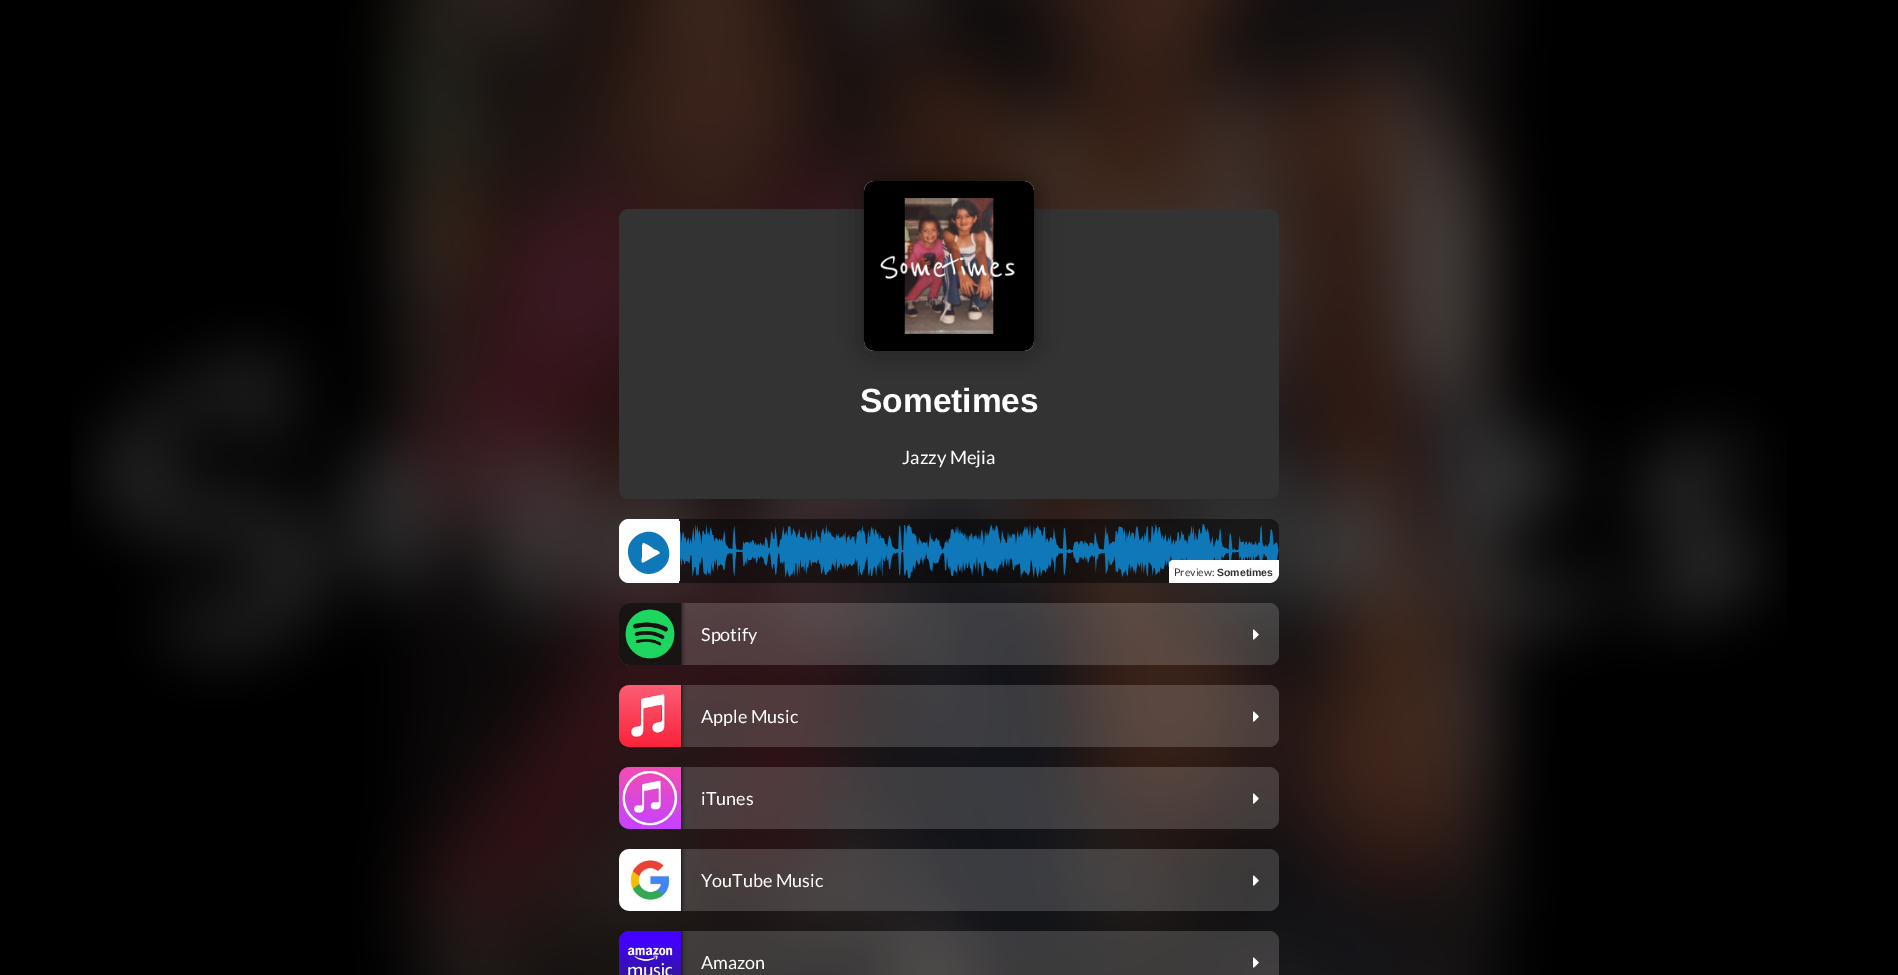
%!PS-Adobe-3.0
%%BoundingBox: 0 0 1898 975
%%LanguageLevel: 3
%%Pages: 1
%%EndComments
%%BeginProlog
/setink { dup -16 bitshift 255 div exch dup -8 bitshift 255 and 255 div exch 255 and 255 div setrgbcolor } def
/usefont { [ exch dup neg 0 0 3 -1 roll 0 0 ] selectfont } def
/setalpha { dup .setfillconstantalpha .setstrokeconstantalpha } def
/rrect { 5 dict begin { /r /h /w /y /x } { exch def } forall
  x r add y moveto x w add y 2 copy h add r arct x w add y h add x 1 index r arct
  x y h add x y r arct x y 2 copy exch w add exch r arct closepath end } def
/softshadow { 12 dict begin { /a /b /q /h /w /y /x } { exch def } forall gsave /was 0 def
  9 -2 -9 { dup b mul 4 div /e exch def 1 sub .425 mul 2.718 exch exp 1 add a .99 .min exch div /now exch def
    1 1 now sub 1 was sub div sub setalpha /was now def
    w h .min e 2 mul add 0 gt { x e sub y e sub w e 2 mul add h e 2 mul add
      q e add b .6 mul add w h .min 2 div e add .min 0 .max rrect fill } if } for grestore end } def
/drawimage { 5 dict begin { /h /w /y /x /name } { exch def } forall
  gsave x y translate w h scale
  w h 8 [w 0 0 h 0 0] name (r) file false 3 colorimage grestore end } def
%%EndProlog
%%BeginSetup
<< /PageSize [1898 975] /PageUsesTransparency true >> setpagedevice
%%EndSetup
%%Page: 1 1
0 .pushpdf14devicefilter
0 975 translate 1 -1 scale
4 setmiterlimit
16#000000 setink
0 0 1898 975 rectfill
(img1.raw) 71 0 1716 975 drawimage
16#333333 setink
619 209 660 290 10 rrect fill
16#000000 setink
864 181 170 170 10 12.5 0.35 softshadow
16#CCCCCC setink
864 181 170 170 10 rrect fill
(img2.raw) 864 181 170 170 drawimage
/LiberationSans-Bold 33.5 usefont
16#FFFFFF setink
860 412 moveto (Sometimes) show
/Lato-Regular 18.5 usefont
902 464 moveto (Jazzy Mejia) show
629 519 moveto 679 519 lineto 679 583 lineto 629 583 lineto 623.5 583 619 578.5 619 573 curveto 619 529 lineto 619 523.5 623.5 519 629 519 curveto closepath fill
16#0F78B8 setink
638 535 moveto 662 521 682 557 659 571 curveto 636 584 615 549 638 535 curveto closepath 659 554 moveto 663 552 654 549 654 549 curveto 652 547 644 542 643 543 curveto 641 544 642 554 642 556 curveto 642 557 640 563 643 563 curveto closepath fill
0.5 setalpha
16#000000 setink
679 519 moveto 1269 519 lineto 1274.5 519 1279 523.5 1279 529 curveto 1279 573 lineto 1279 578.5 1274.5 583 1269 583 curveto 679 583 lineto closepath fill
1 setalpha
16#FFFFFF setink
679 521 1 60 rectfill
(img3.raw) 680 524 599 54 drawimage
1173 560 moveto 1279 560 lineto 1279 573 lineto 1279 578.5 1274.5 583 1269 583 curveto 1169 583 lineto 1169 564 lineto 1169 562 1171 560 1173 560 curveto closepath fill
/Lato-Regular 10.5 usefont
16#333333 setink
1174 576 moveto (Preview:) show
/LiberationSans-Bold 10.5 usefont
1217 576 moveto (Sometimes) show
0.17 setalpha
16#FFFFFF setink
619 603 660 62 10 rrect fill
gsave
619 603 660 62 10 rrect clip newpath
1 setalpha
16#000000 setink
619 603 62 62 0 2.5 1 softshadow
grestore
1 setalpha
(img4.raw) 619 603 62 62 drawimage
/Lato-Regular 18 usefont
701 641 moveto (Spotify) show
(img5.raw) 1253 629 6 11 drawimage
0.17 setalpha
619 685 660 62 10 rrect fill
gsave
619 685 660 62 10 rrect clip newpath
1 setalpha
16#000000 setink
619 685 62 62 0 2.5 1 softshadow
grestore
1 setalpha
(img6.raw) 619 685 62 62 drawimage
701 723 moveto (Apple Music) show
(img7.raw) 1253 711 6 11 drawimage
0.17 setalpha
619 767 660 62 10 rrect fill
gsave
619 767 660 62 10 rrect clip newpath
1 setalpha
16#000000 setink
619 767 62 62 0 2.5 1 softshadow
grestore
1 setalpha
(img8.raw) 619 767 62 62 drawimage
701 805 moveto (iTunes) show
(img9.raw) 1253 793 6 11 drawimage
0.17 setalpha
619 849 660 62 10 rrect fill
gsave
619 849 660 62 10 rrect clip newpath
1 setalpha
16#000000 setink
619 849 62 62 0 2.5 1 softshadow
grestore
1 setalpha
(img10.raw) 619 849 62 62 drawimage
701 887 moveto (YouTube Music) show
(img11.raw) 1253 875 6 11 drawimage
0.17 setalpha
619 931 660 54 10 rrect fill
gsave
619 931 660 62 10 rrect clip newpath
1 setalpha
16#000000 setink
619 931 62 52 0 2.5 1 softshadow
grestore
1 setalpha
(img12.raw) 619 931 62 44 drawimage
701 969 moveto (Amazon) show
(img13.raw) 1253 957 6 11 drawimage
.poppdf14devicefilter showpage
%%EOF
